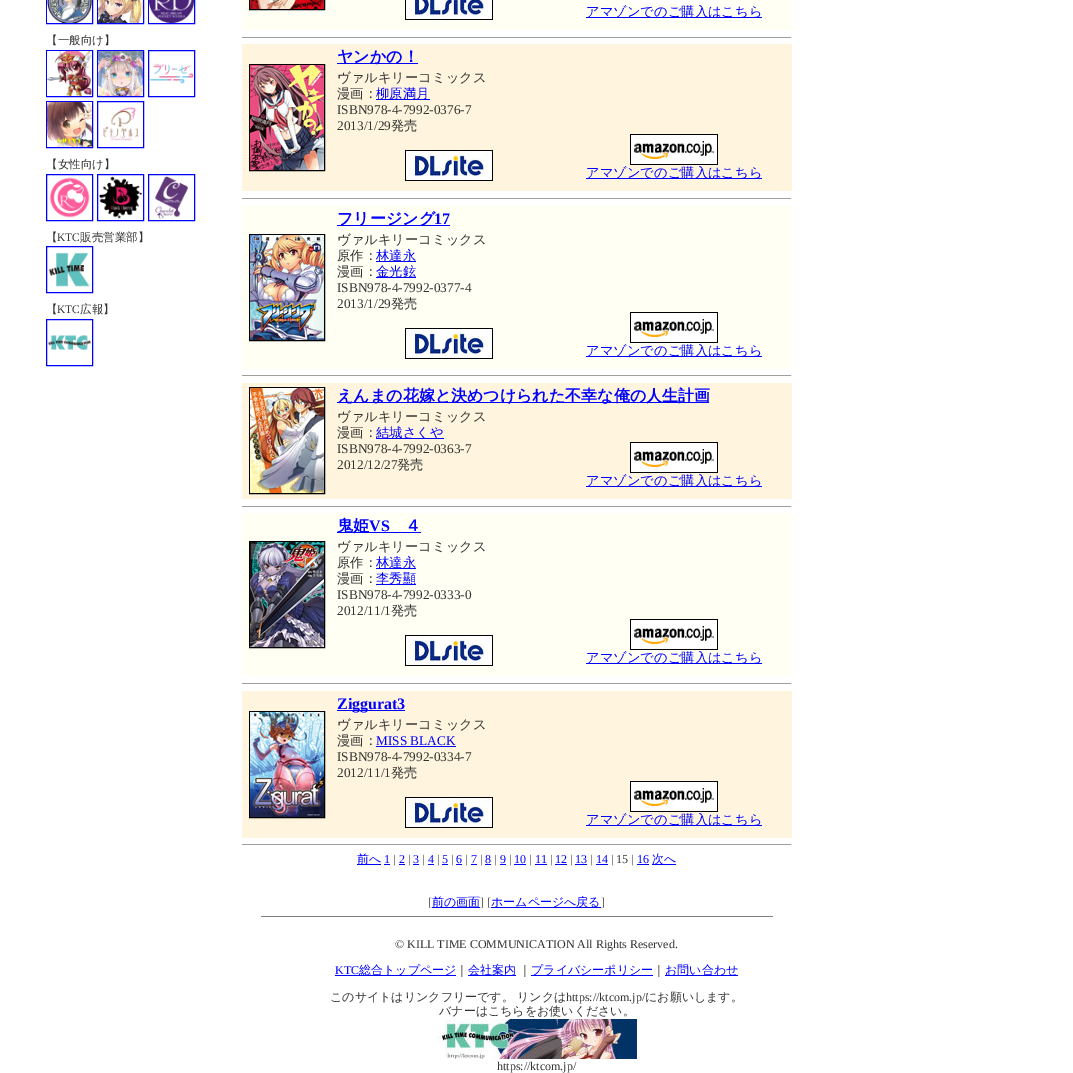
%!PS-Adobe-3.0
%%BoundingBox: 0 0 1073 1073
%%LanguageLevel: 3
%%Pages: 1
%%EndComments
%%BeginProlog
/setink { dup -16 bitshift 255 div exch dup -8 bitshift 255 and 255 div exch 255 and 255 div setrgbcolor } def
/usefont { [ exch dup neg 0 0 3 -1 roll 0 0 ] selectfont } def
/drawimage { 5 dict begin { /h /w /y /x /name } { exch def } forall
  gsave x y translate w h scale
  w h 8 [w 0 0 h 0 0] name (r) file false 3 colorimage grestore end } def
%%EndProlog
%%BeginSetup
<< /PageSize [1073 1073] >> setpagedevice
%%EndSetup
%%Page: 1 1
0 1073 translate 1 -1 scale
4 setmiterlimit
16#FFFFFF setink
0 0 1073 1073 rectfill
16#0000FF setink
46.5 -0.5 46 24 rectstroke
97.5 -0.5 46 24 rectstroke
148.5 -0.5 46 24 rectstroke
(img1.raw) 47 0 45 23 drawimage
(img2.raw) 98 0 45 23 drawimage
(img3.raw) 149 0 45 23 drawimage
/WenQuanYiZenHei-Medium 11.5 usefont
16#333333 setink
46 44 moveto (【一般向け】) show
16#0000FF setink
46.5 50.5 46 46 rectstroke
97.5 50.5 46 46 rectstroke
148.5 50.5 46 46 rectstroke
(img4.raw) 47 51 45 45 drawimage
(img5.raw) 98 51 45 45 drawimage
(img6.raw) 150 63 44 21 drawimage
46.5 101.5 46 46 rectstroke
97.5 101.5 46 46 rectstroke
(img7.raw) 47 102 45 45 drawimage
(img8.raw) 103 107 36 34 drawimage
16#333333 setink
46 168 moveto (【女性向け】) show
16#0000FF setink
46.5 174.5 46 46 rectstroke
97.5 174.5 46 46 rectstroke
148.5 174.5 46 46 rectstroke
(img9.raw) 49 177 41 41 drawimage
(img10.raw) 99 176 44 43 drawimage
(img11.raw) 155 176 33 43 drawimage
16#333333 setink
46 241 moveto (【) show
/LiberationSerif-Regular 11.5 usefont
57 241 moveto (KTC) show
/WenQuanYiZenHei-Medium 11.5 usefont
80 241 moveto (販売営業部】) show
16#0000FF setink
46.5 246.5 46 46 rectstroke
(img12.raw) 48 252 42 35 drawimage
16#333333 setink
46 313 moveto (【) show
/LiberationSerif-Regular 11.5 usefont
57 313 moveto (KTC) show
/WenQuanYiZenHei-Medium 11.5 usefont
80 313 moveto (広報】) show
16#0000FF setink
46.5 319.5 46 46 rectstroke
(img13.raw) 48 335 44 15 drawimage
16#FFFFF4 setink
242 0 550 30 rectfill
16#000000 setink
249.5 -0.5 75 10 rectstroke
(img14.raw) 250 0 74 9 drawimage
(img15.raw) 405 0 88 20 drawimage
16#0000FF setink
586 17 176 1 rectfill
/WenQuanYiZenHei-Medium 13.3 usefont
586 16 moveto (アマゾンでのご購入はこちら) show
[
    [630 0 88 4 16#FFFFFF]
    [242 37 550 1 16#9F9F9F]
    [791 37 1 1 16#EEEEEE]
    [242 44 550 147 16#FFF4DD]
] { aload pop setink rectfill } forall
16#000000 setink
249.5 64.5 75 106 rectstroke
(img16.raw) 250 65 74 105 drawimage
16#0000FF setink
337 63 81 1 rectfill
/WenQuanYiZenHei-Bold 16 usefont
337 62 moveto (ヤンかの！) show
/WenQuanYiZenHei-Medium 13.3 usefont
16#333333 setink
337 82 moveto (ヴァルキリーコミックス) show
337 98 moveto (漫画：) show
16#0000FF setink
376 99 54 1 rectfill
376 98 moveto (柳原満月) show
/LiberationSerif-Regular 13.3 usefont
16#333333 setink
337 114 moveto (ISBN978-4-7992-0376-7) show
337 130 moveto (2013/1/29) show
/WenQuanYiZenHei-Medium 13.3 usefont
391 130 moveto (発売) show
(img17.raw) 405 150 88 31 drawimage
(img18.raw) 630 134 88 31 drawimage
16#0000FF setink
586 178 176 1 rectfill
586 177 moveto (アマゾンでのご購入はこちら) show
[
    [242 198 550 1 16#9F9F9F]
    [791 198 1 1 16#EEEEEE]
    [242 206 550 163 16#FFFFF4]
] { aload pop setink rectfill } forall
16#000000 setink
249.5 234.5 75 106 rectstroke
(img19.raw) 250 235 74 105 drawimage
16#0000FF setink
337 225 113 1 rectfill
/WenQuanYiZenHei-Bold 16 usefont
337 224 moveto (フリージング) show
/LiberationSerif-Bold 16 usefont
434 224 moveto (17) show
/WenQuanYiZenHei-Medium 13.3 usefont
16#333333 setink
337 244 moveto (ヴァルキリーコミックス) show
337 260 moveto (原作：) show
16#0000FF setink
376 261 40 1 rectfill
376 260 moveto (林達永) show
16#333333 setink
337 276 moveto (漫画：) show
16#0000FF setink
376 277 40 1 rectfill
376 276 moveto (金光鉉) show
/LiberationSerif-Regular 13.3 usefont
16#333333 setink
337 292 moveto (ISBN978-4-7992-0377-4) show
337 308 moveto (2013/1/29) show
/WenQuanYiZenHei-Medium 13.3 usefont
391 308 moveto (発売) show
(img17.raw) 405 328 88 31 drawimage
(img18.raw) 630 312 88 31 drawimage
16#0000FF setink
586 356 176 1 rectfill
586 355 moveto (アマゾンでのご購入はこちら) show
[
    [242 375 550 1 16#9F9F9F]
    [791 375 1 1 16#EEEEEE]
    [242 383 550 116 16#FFF4DD]
] { aload pop setink rectfill } forall
16#000000 setink
249.5 387.5 75 106 rectstroke
(img20.raw) 250 388 74 105 drawimage
16#0000FF setink
337 402 372 1 rectfill
/WenQuanYiZenHei-Bold 16 usefont
337 401 moveto (えんまの花嫁と決めつけられた不幸な俺の人生計画) show
/WenQuanYiZenHei-Medium 13.3 usefont
16#333333 setink
337 421 moveto (ヴァルキリーコミックス) show
337 437 moveto (漫画：) show
16#0000FF setink
376 438 68 1 rectfill
376 437 moveto (結城さくや) show
/LiberationSerif-Regular 13.3 usefont
16#333333 setink
337 453 moveto (ISBN978-4-7992-0363-7) show
337 469 moveto (2012/12/27) show
/WenQuanYiZenHei-Medium 13.3 usefont
397 469 moveto (発売) show
(img18.raw) 630 442 88 31 drawimage
16#0000FF setink
586 486 176 1 rectfill
586 485 moveto (アマゾンでのご購入はこちら) show
[
    [242 506 550 1 16#9F9F9F]
    [791 506 1 1 16#EEEEEE]
    [242 513 550 163 16#FFFFF4]
] { aload pop setink rectfill } forall
16#000000 setink
249.5 541.5 75 106 rectstroke
(img21.raw) 250 542 74 105 drawimage
16#0000FF setink
337 532 84 1 rectfill
/WenQuanYiZenHei-Bold 16 usefont
337 531 moveto (鬼姫) show
/LiberationSerif-Bold 16 usefont
369 531 moveto (VS) show
/WenQuanYiZenHei-Bold 16 usefont
405 531 moveto (４) show
/WenQuanYiZenHei-Medium 13.3 usefont
16#333333 setink
337 551 moveto (ヴァルキリーコミックス) show
337 567 moveto (原作：) show
16#0000FF setink
376 568 40 1 rectfill
376 567 moveto (林達永) show
16#333333 setink
337 583 moveto (漫画：) show
16#0000FF setink
376 584 40 1 rectfill
376 583 moveto (李秀顯) show
/LiberationSerif-Regular 13.3 usefont
16#333333 setink
337 599 moveto (ISBN978-4-7992-0333-0) show
337 615 moveto (2012/11/1) show
/WenQuanYiZenHei-Medium 13.3 usefont
391 615 moveto (発売) show
(img17.raw) 405 635 88 31 drawimage
(img18.raw) 630 619 88 31 drawimage
16#0000FF setink
586 663 176 1 rectfill
586 662 moveto (アマゾンでのご購入はこちら) show
[
    [242 683 550 1 16#9F9F9F]
    [791 683 1 1 16#EEEEEE]
    [242 691 550 147 16#FFF4DD]
] { aload pop setink rectfill } forall
16#000000 setink
249.5 711.5 75 106 rectstroke
(img22.raw) 250 712 74 105 drawimage
16#0000FF setink
337 710 68 1 rectfill
/LiberationSerif-Bold 16 usefont
337 709 moveto (Ziggurat3) show
/WenQuanYiZenHei-Medium 13.3 usefont
16#333333 setink
337 729 moveto (ヴァルキリーコミックス) show
337 745 moveto (漫画：) show
/LiberationSerif-Regular 13.3 usefont
16#0000FF setink
376 745 moveto (MISS BLACK) show
376 746 80 1 rectfill
16#333333 setink
337 761 moveto (ISBN978-4-7992-0334-7) show
337 777 moveto (2012/11/1) show
/WenQuanYiZenHei-Medium 13.3 usefont
391 777 moveto (発売) show
(img17.raw) 405 797 88 31 drawimage
(img18.raw) 630 781 88 31 drawimage
16#0000FF setink
586 825 176 1 rectfill
586 824 moveto (アマゾンでのご購入はこちら) show
[
    [242 844 550 1 16#9F9F9F]
    [791 844 1 1 16#EEEEEE]
    [357 864 24 1 16#0000FF]
] { aload pop setink rectfill } forall
/WenQuanYiZenHei-Medium 12 usefont
357 863 moveto (前へ) show
/LiberationSerif-Regular 12 usefont
384 863 moveto (1) show
384 864 6 1 rectfill
16#333333 setink
393 863 moveto (|) show
16#0000FF setink
399 863 moveto (2) show
399 864 6 1 rectfill
16#333333 setink
408 863 moveto (|) show
16#0000FF setink
413 863 moveto (3) show
413 864 6 1 rectfill
16#333333 setink
422 863 moveto (|) show
16#0000FF setink
428 863 moveto (4) show
428 864 6 1 rectfill
16#333333 setink
437 863 moveto (|) show
16#0000FF setink
442 863 moveto (5) show
442 864 6 1 rectfill
16#333333 setink
451 863 moveto (|) show
16#0000FF setink
456 863 moveto (6) show
456 864 6 1 rectfill
16#333333 setink
465 863 moveto (|) show
16#0000FF setink
471 863 moveto (7) show
471 864 6 1 rectfill
16#333333 setink
480 863 moveto (|) show
16#0000FF setink
485 863 moveto (8) show
485 864 6 1 rectfill
16#333333 setink
494 863 moveto (|) show
16#0000FF setink
500 863 moveto (9) show
500 864 6 1 rectfill
16#333333 setink
509 863 moveto (|) show
16#0000FF setink
514 863 moveto (10) show
514 864 12 1 rectfill
16#333333 setink
529 863 moveto (|) show
16#0000FF setink
535 863 moveto (11) show
535 864 12 1 rectfill
16#333333 setink
550 863 moveto (|) show
16#0000FF setink
555 863 moveto (12) show
555 864 12 1 rectfill
16#333333 setink
570 863 moveto (|) show
16#0000FF setink
575 863 moveto (13) show
575 864 12 1 rectfill
16#333333 setink
590 863 moveto (|) show
16#0000FF setink
596 863 moveto (14) show
596 864 12 1 rectfill
16#333333 setink
611 863 moveto (| 15 |) show
16#0000FF setink
637 863 moveto (16) show
637 864 12 1 rectfill
652 864 24 1 rectfill
/WenQuanYiZenHei-Medium 12 usefont
652 863 moveto (次へ) show
/LiberationSerif-Regular 12 usefont
16#333333 setink
428 906 moveto ([) show
16#0000FF setink
432 907 48 1 rectfill
/WenQuanYiZenHei-Medium 12 usefont
432 906 moveto (前の画面) show
/LiberationSerif-Regular 12 usefont
16#333333 setink
480 906 moveto (] [) show
16#0000FF setink
491 907 110 1 rectfill
/WenQuanYiZenHei-Medium 12 usefont
491 906 moveto (ホームページへ戻る) show
/LiberationSerif-Regular 12 usefont
16#333333 setink
601 906 moveto (]) show
16#808080 setink
261 916 512 1 rectfill
16#333333 setink
395 948 moveto (© KILL TIME COMMUNICATION All Rights Reserved.) show
16#0000FF setink
335 974 moveto (KTC) show
335 975 121 1 rectfill
/WenQuanYiZenHei-Medium 12 usefont
359 974 moveto (総合トップページ) show
16#333333 setink
456 974 moveto (｜) show
16#0000FF setink
468 975 48 1 rectfill
468 974 moveto (会社案内) show
16#333333 setink
519 974 moveto (｜) show
16#0000FF setink
531 975 122 1 rectfill
531 974 moveto (プライバシーポリシー) show
16#333333 setink
653 974 moveto (｜) show
16#0000FF setink
665 975 73 1 rectfill
665 974 moveto (お問い合わせ) show
16#333333 setink
330 1001 moveto (このサイトはリンクフリーです。) show
517 1001 moveto (リンクは) show
/LiberationSerif-Regular 12 usefont
566 1001 moveto (https://ktcom.jp/) show
/WenQuanYiZenHei-Medium 12 usefont
645 1001 moveto (にお願いします。) show
439 1015 moveto (バナーはこちらをお使いください。) show
(img23.raw) 437 1019 200 40 drawimage
/LiberationSerif-Regular 12 usefont
497 1070 moveto (https://ktcom.jp/) show
showpage
%%EOF
